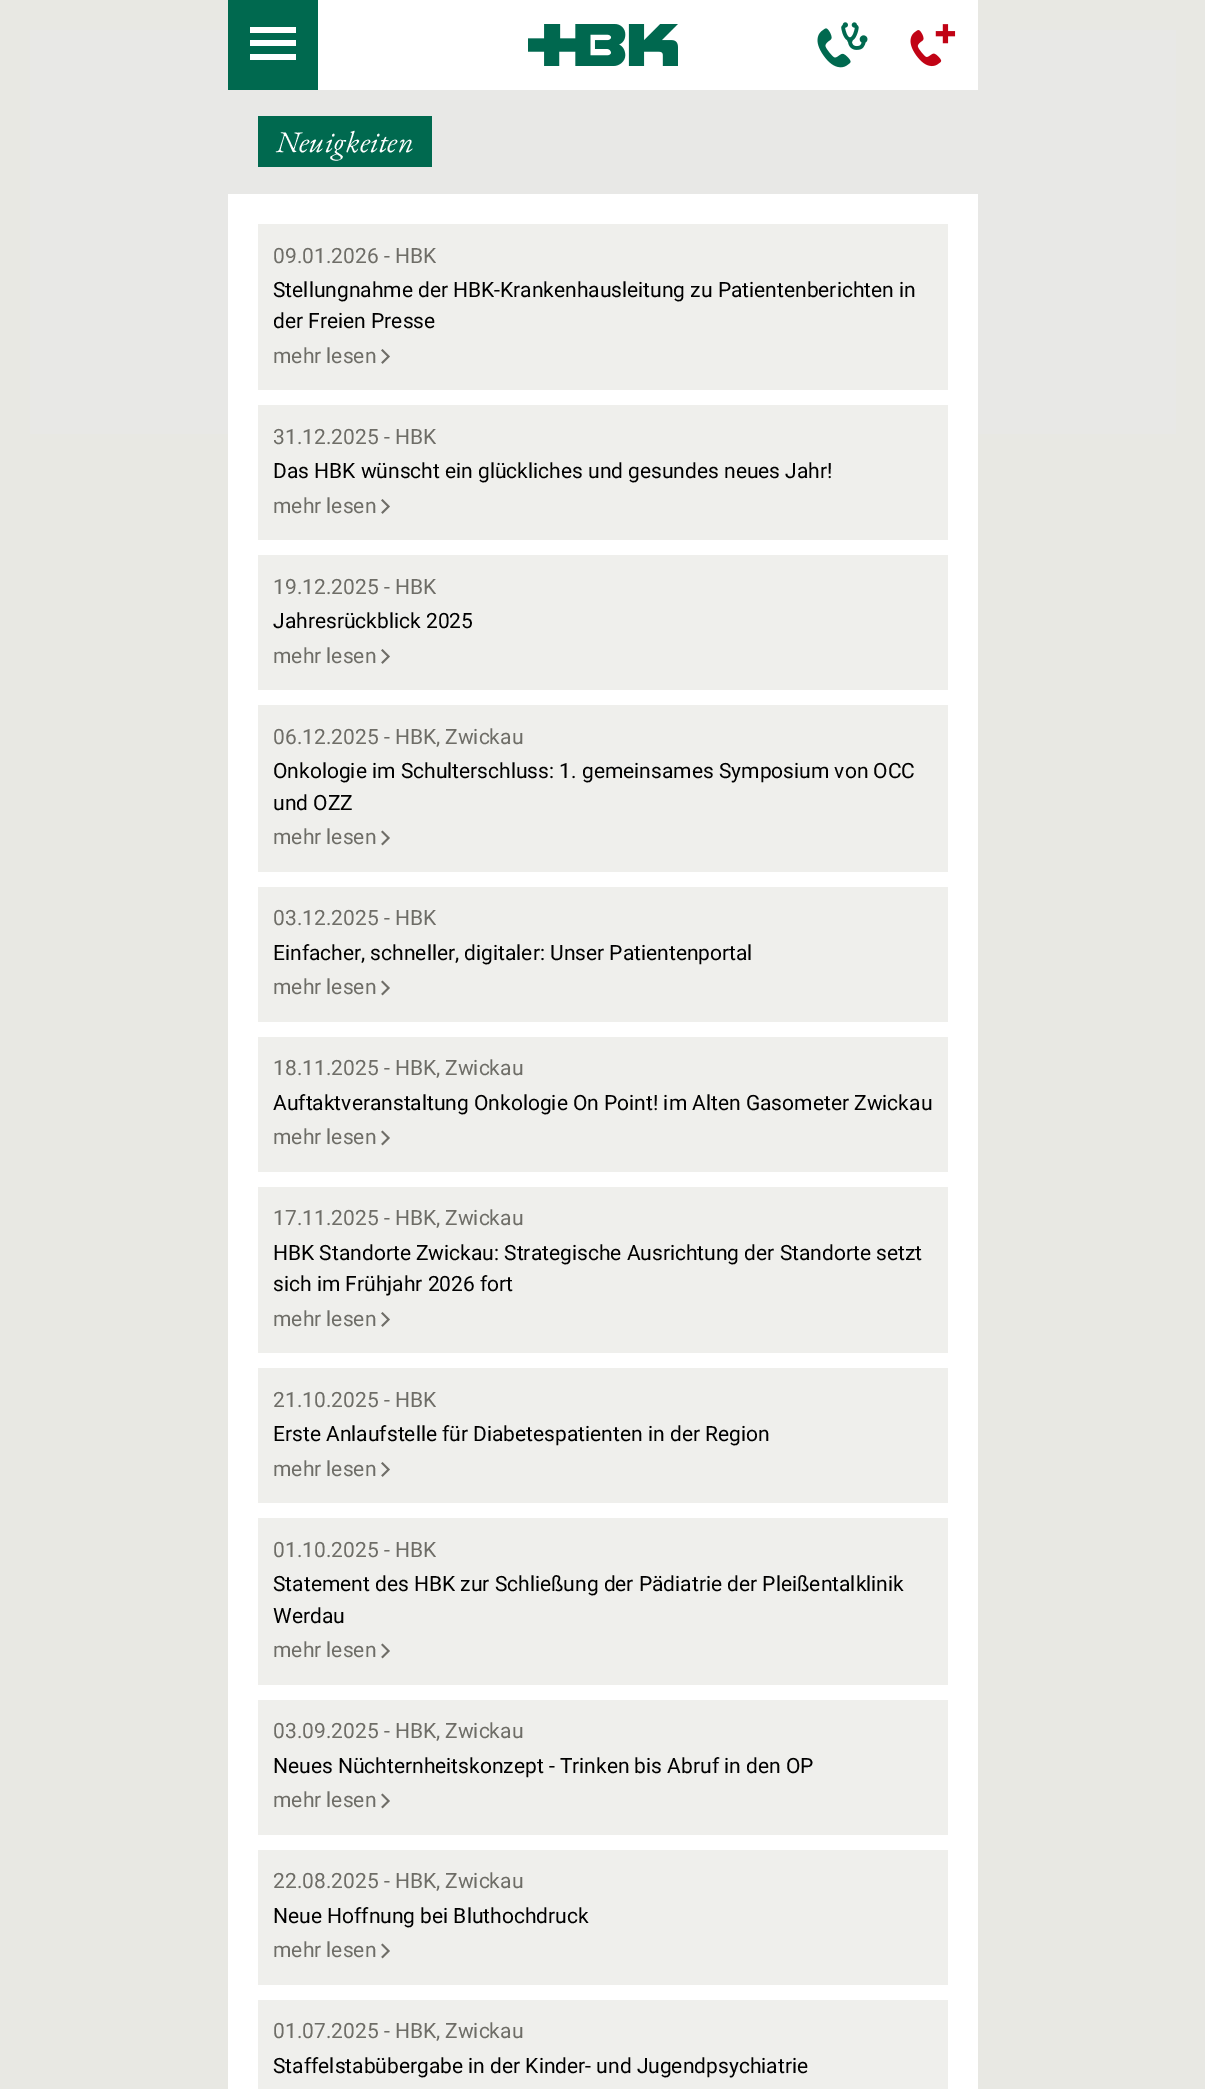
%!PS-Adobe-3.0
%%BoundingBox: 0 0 1205 2089
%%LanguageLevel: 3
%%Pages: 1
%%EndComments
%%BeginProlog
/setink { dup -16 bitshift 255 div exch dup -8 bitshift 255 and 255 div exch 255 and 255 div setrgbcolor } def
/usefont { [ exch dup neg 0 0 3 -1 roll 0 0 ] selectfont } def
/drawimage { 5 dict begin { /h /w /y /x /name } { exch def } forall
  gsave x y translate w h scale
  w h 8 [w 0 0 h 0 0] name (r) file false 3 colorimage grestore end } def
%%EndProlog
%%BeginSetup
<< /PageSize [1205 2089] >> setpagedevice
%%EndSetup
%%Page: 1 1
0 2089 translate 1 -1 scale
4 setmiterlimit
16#E8E8E3 setink
0 0 1205 2089 rectfill
16#E8E8E6 setink
30 30 1146 404 rectfill
16#00694F setink
228 0 90 90 rectfill
16#FFFFFF setink
250 27 moveto 296 27 lineto 296 33 lineto 250 33 lineto closepath 250 40 moveto 296 40 lineto 296 46 lineto 250 46 lineto closepath 250 54 moveto 296 54 lineto 296 60 lineto 250 60 lineto closepath fill
318 0 660 90 rectfill
(img1.raw) 528 24 150 42 drawimage
(img2.raw) 817 22 51 46 drawimage
(img3.raw) 910 24 46 43 drawimage
228 194 750 1895 rectfill
16#00694F setink
258 116 174 51 rectfill
/EBGaramond-Italic 30 usefont
16#FFFFFF setink
276 152 moveto (Neuigkeiten) show
16#EFEFEC setink
258 224 690 166 rectfill
/Roboto-Regular 21 usefont
16#6E6D67 setink
273 263 moveto (09.01.2026 - HBK) show
16#000000 setink
273 297 moveto (Stellungnahme der HBK-Krankenhausleitung zu Patientenberichten in) show
273 328 moveto (der Freien Presse) show
16#6E6D67 setink
273 363 moveto (mehr lesen) show
(img4.raw) 381 349 9 15 drawimage
16#EFEFEC setink
258 405 690 135 rectfill
16#6E6D67 setink
273 444 moveto (31.12.2025 - HBK) show
16#000000 setink
273 478 moveto (Das HBK wünscht ein glückliches und gesundes neues Jahr!) show
16#6E6D67 setink
273 513 moveto (mehr lesen) show
(img4.raw) 381 499 9 15 drawimage
16#EFEFEC setink
258 555 690 135 rectfill
16#6E6D67 setink
273 594 moveto (19.12.2025 - HBK) show
16#000000 setink
273 628 moveto (Jahresrückblick 2025) show
16#6E6D67 setink
273 663 moveto (mehr lesen) show
(img4.raw) 381 649 9 15 drawimage
16#EFEFEC setink
258 705 690 167 rectfill
16#6E6D67 setink
273 744 moveto (06.12.2025 - HBK, Zwickau) show
16#000000 setink
273 778 moveto (Onkologie im Schulterschluss: 1. gemeinsames Symposium von OCC) show
273 810 moveto (und OZZ) show
16#6E6D67 setink
273 844 moveto (mehr lesen) show
(img5.raw) 381 830 9 16 drawimage
16#EFEFEC setink
258 887 690 135 rectfill
16#6E6D67 setink
273 925 moveto (03.12.2025 - HBK) show
16#000000 setink
273 960 moveto (Einfacher, schneller, digitaler: Unser Patientenportal) show
16#6E6D67 setink
273 994 moveto (mehr lesen) show
(img5.raw) 381 980 9 16 drawimage
16#EFEFEC setink
258 1037 690 135 rectfill
16#6E6D67 setink
273 1075 moveto (18.11.2025 - HBK, Zwickau) show
16#000000 setink
273 1110 moveto (Auftaktveranstaltung Onkologie On Point! im Alten Gasometer Zwickau) show
16#6E6D67 setink
273 1144 moveto (mehr lesen) show
(img5.raw) 381 1130 9 16 drawimage
16#EFEFEC setink
258 1187 690 166 rectfill
16#6E6D67 setink
273 1225 moveto (17.11.2025 - HBK, Zwickau) show
16#000000 setink
273 1260 moveto (HBK Standorte Zwickau: Strategische Ausrichtung der Standorte setzt) show
273 1291 moveto (sich im Frühjahr 2026 fort) show
16#6E6D67 setink
273 1326 moveto (mehr lesen) show
(img4.raw) 381 1312 9 15 drawimage
16#EFEFEC setink
258 1368 690 135 rectfill
16#6E6D67 setink
273 1407 moveto (21.10.2025 - HBK) show
16#000000 setink
273 1441 moveto (Erste Anlaufstelle für Diabetespatienten in der Region) show
16#6E6D67 setink
273 1476 moveto (mehr lesen) show
(img4.raw) 381 1462 9 15 drawimage
16#EFEFEC setink
258 1518 690 167 rectfill
16#6E6D67 setink
273 1557 moveto (01.10.2025 - HBK) show
16#000000 setink
273 1591 moveto (Statement des HBK zur Schließung der Pädiatrie der Pleißentalklinik) show
273 1623 moveto (Werdau) show
16#6E6D67 setink
273 1657 moveto (mehr lesen) show
(img5.raw) 381 1643 9 16 drawimage
16#EFEFEC setink
258 1700 690 135 rectfill
16#6E6D67 setink
273 1738 moveto (03.09.2025 - HBK, Zwickau) show
16#000000 setink
273 1773 moveto (Neues Nüchternheitskonzept - Trinken bis Abruf in den OP) show
16#6E6D67 setink
273 1807 moveto (mehr lesen) show
(img5.raw) 381 1793 9 16 drawimage
16#EFEFEC setink
258 1850 690 135 rectfill
16#6E6D67 setink
273 1888 moveto (22.08.2025 - HBK, Zwickau) show
16#000000 setink
273 1923 moveto (Neue Hoffnung bei Bluthochdruck) show
16#6E6D67 setink
273 1957 moveto (mehr lesen) show
(img5.raw) 381 1943 9 16 drawimage
16#EFEFEC setink
258 2000 690 89 rectfill
16#6E6D67 setink
273 2038 moveto (01.07.2025 - HBK, Zwickau) show
16#000000 setink
273 2073 moveto (Staffelstabübergabe in der Kinder- und Jugendpsychiatrie) show
showpage
%%EOF
